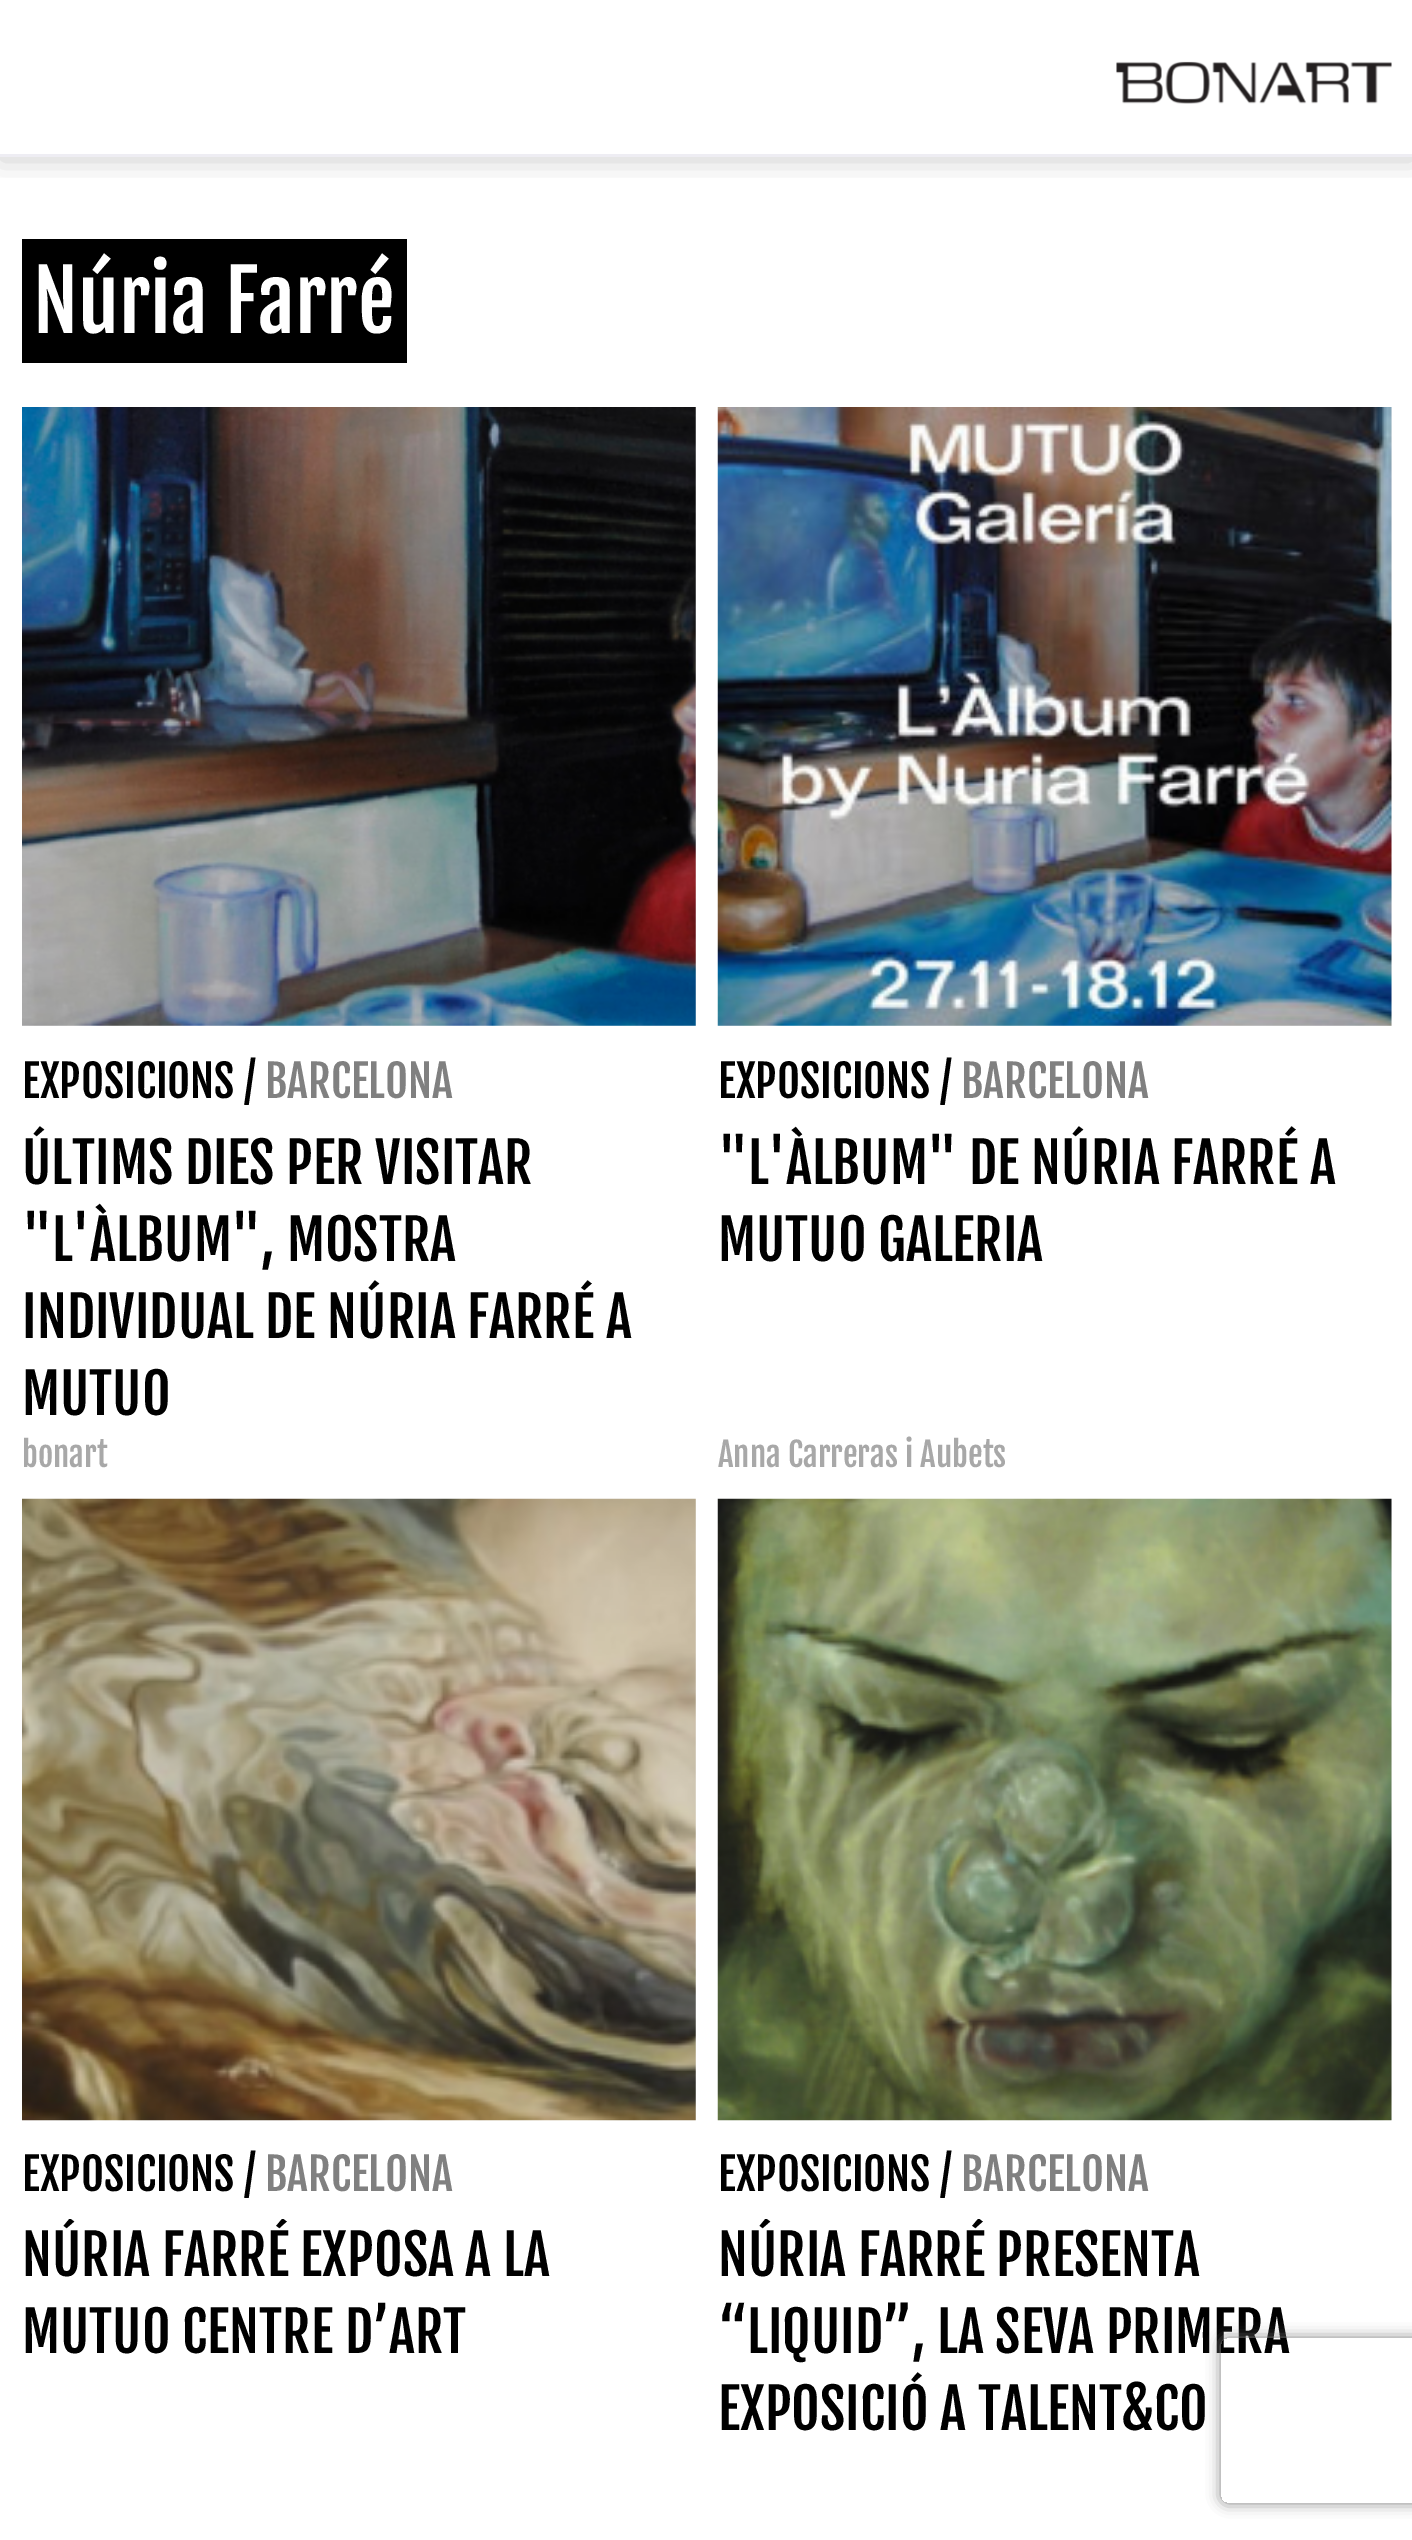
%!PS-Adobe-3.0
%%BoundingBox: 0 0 1412 2540
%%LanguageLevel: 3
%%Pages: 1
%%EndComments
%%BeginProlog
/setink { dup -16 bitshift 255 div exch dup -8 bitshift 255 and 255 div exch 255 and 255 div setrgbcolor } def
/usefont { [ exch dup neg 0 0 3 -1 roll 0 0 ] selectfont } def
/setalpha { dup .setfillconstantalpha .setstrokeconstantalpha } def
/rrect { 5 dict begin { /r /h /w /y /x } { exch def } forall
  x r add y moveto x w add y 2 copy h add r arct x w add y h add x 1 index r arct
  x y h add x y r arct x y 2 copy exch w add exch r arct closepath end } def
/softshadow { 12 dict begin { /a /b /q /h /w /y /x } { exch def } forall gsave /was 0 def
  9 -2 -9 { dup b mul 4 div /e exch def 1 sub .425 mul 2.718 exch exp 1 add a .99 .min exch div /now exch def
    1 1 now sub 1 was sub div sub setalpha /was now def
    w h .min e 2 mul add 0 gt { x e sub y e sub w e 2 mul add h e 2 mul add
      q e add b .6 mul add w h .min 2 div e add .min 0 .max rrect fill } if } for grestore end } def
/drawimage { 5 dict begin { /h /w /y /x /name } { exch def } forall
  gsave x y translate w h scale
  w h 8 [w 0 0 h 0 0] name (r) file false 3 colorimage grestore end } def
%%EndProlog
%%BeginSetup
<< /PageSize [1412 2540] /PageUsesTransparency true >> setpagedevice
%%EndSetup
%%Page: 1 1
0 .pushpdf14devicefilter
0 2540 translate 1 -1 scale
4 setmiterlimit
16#FFFFFF setink
0 0 1412 2540 rectfill
gsave
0 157 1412 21 rectclip
16#0F0F0F setink
0 3 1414 157 0 14 0.2 softshadow
grestore
16#EEEDF3 setink
0 154 1412 3 rectfill
(img1.raw) 1116 61 276 43 drawimage
16#000000 setink
33 239 363 124 rectfill
/FjallaOne-Regular 82.5 usefont
16#FFFFFF setink
33 333 moveto (Núria Farré) show
16#000000 setink
22 239 moveto 22 363 lineto 33 363 lineto 33 239 lineto 385 239 lineto closepath fill
44 239 moveto 396 239 lineto 396 363 lineto 407 363 lineto 407 239 lineto closepath fill
16#F6F6F6 setink
22 407 674 619 rectfill
(img2.raw) 22 407 674 619 drawimage
/FjallaOne-Regular 44 usefont
16#000000 setink
22 1098 moveto (EXPOSICIONS /) show
16#808080 setink
265 1098 moveto (BARCELONA) show
/FjallaOne-Regular 55 usefont
16#000000 setink
[
    [(ÚLTIMS DIES PER VISITAR) 22 1184]
    [("L'ÀLBUM", MOSTRA) 22 1261]
    [(INDIVIDUAL DE NÚRIA FARRÉ A) 22 1338]
    [(MUTUO) 22 1415]
] { aload pop moveto show } forall
/FjallaOne-Regular 33 usefont
16#A8A8A8 setink
22 1467 moveto (bonart) show
16#F6F6F6 setink
718 407 674 619 rectfill
(img3.raw) 717 407 675 619 drawimage
/FjallaOne-Regular 44 usefont
16#000000 setink
718 1098 moveto (EXPOSICIONS /) show
16#808080 setink
961 1098 moveto (BARCELONA) show
/FjallaOne-Regular 55 usefont
16#000000 setink
718 1184 moveto ("L'ÀLBUM" DE NÚRIA FARRÉ A) show
718 1261 moveto (MUTUO GALERIA) show
/FjallaOne-Regular 33 usefont
16#A8A8A8 setink
718 1467 moveto (Anna Carreras i Aubets) show
(img4.raw) 22 1498 674 623 drawimage
/FjallaOne-Regular 44 usefont
16#000000 setink
22 2191 moveto (EXPOSICIONS /) show
16#808080 setink
265 2191 moveto (BARCELONA) show
gsave
22 2219 674 308 rectclip
/FjallaOne-Regular 55 usefont
16#000000 setink
22 2276 moveto (NÚRIA FARRÉ EXPOSA A LA) show
grestore
/FjallaOne-Regular 55 usefont
16#000000 setink
22 2353 moveto (MUTUO CENTRE D’ART) show
16#F6F6F6 setink
1391 1499 1 621 rectfill
(img5.raw) 717 1498 675 623 drawimage
/FjallaOne-Regular 44 usefont
16#000000 setink
718 2191 moveto (EXPOSICIONS /) show
16#808080 setink
961 2191 moveto (BARCELONA) show
gsave
718 2219 674 308 rectclip
/FjallaOne-Regular 55 usefont
16#000000 setink
718 2276 moveto (NÚRIA FARRÉ PRESENTA) show
grestore
/FjallaOne-Regular 55 usefont
16#000000 setink
718 2353 moveto (“LIQUID”, LA SEVA PRIMERA) show
718 2430 moveto (EXPOSICIÓ A TALENT&CO) show
gsave
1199 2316 moveto 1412 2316 lineto 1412 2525 lineto 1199 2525 lineto closepath 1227 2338 moveto 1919 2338 lineto 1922.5 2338 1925 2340.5 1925 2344 curveto 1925 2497 lineto 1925 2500.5 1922.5 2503 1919 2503 curveto 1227 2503 lineto 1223.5 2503 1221 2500.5 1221 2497 curveto 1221 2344 lineto 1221 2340.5 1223.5 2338 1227 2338 curveto closepath eoclip newpath
16#808080 setink
1221 2338 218 165 6 7 1 softshadow
grestore
.poppdf14devicefilter showpage
%%EOF
